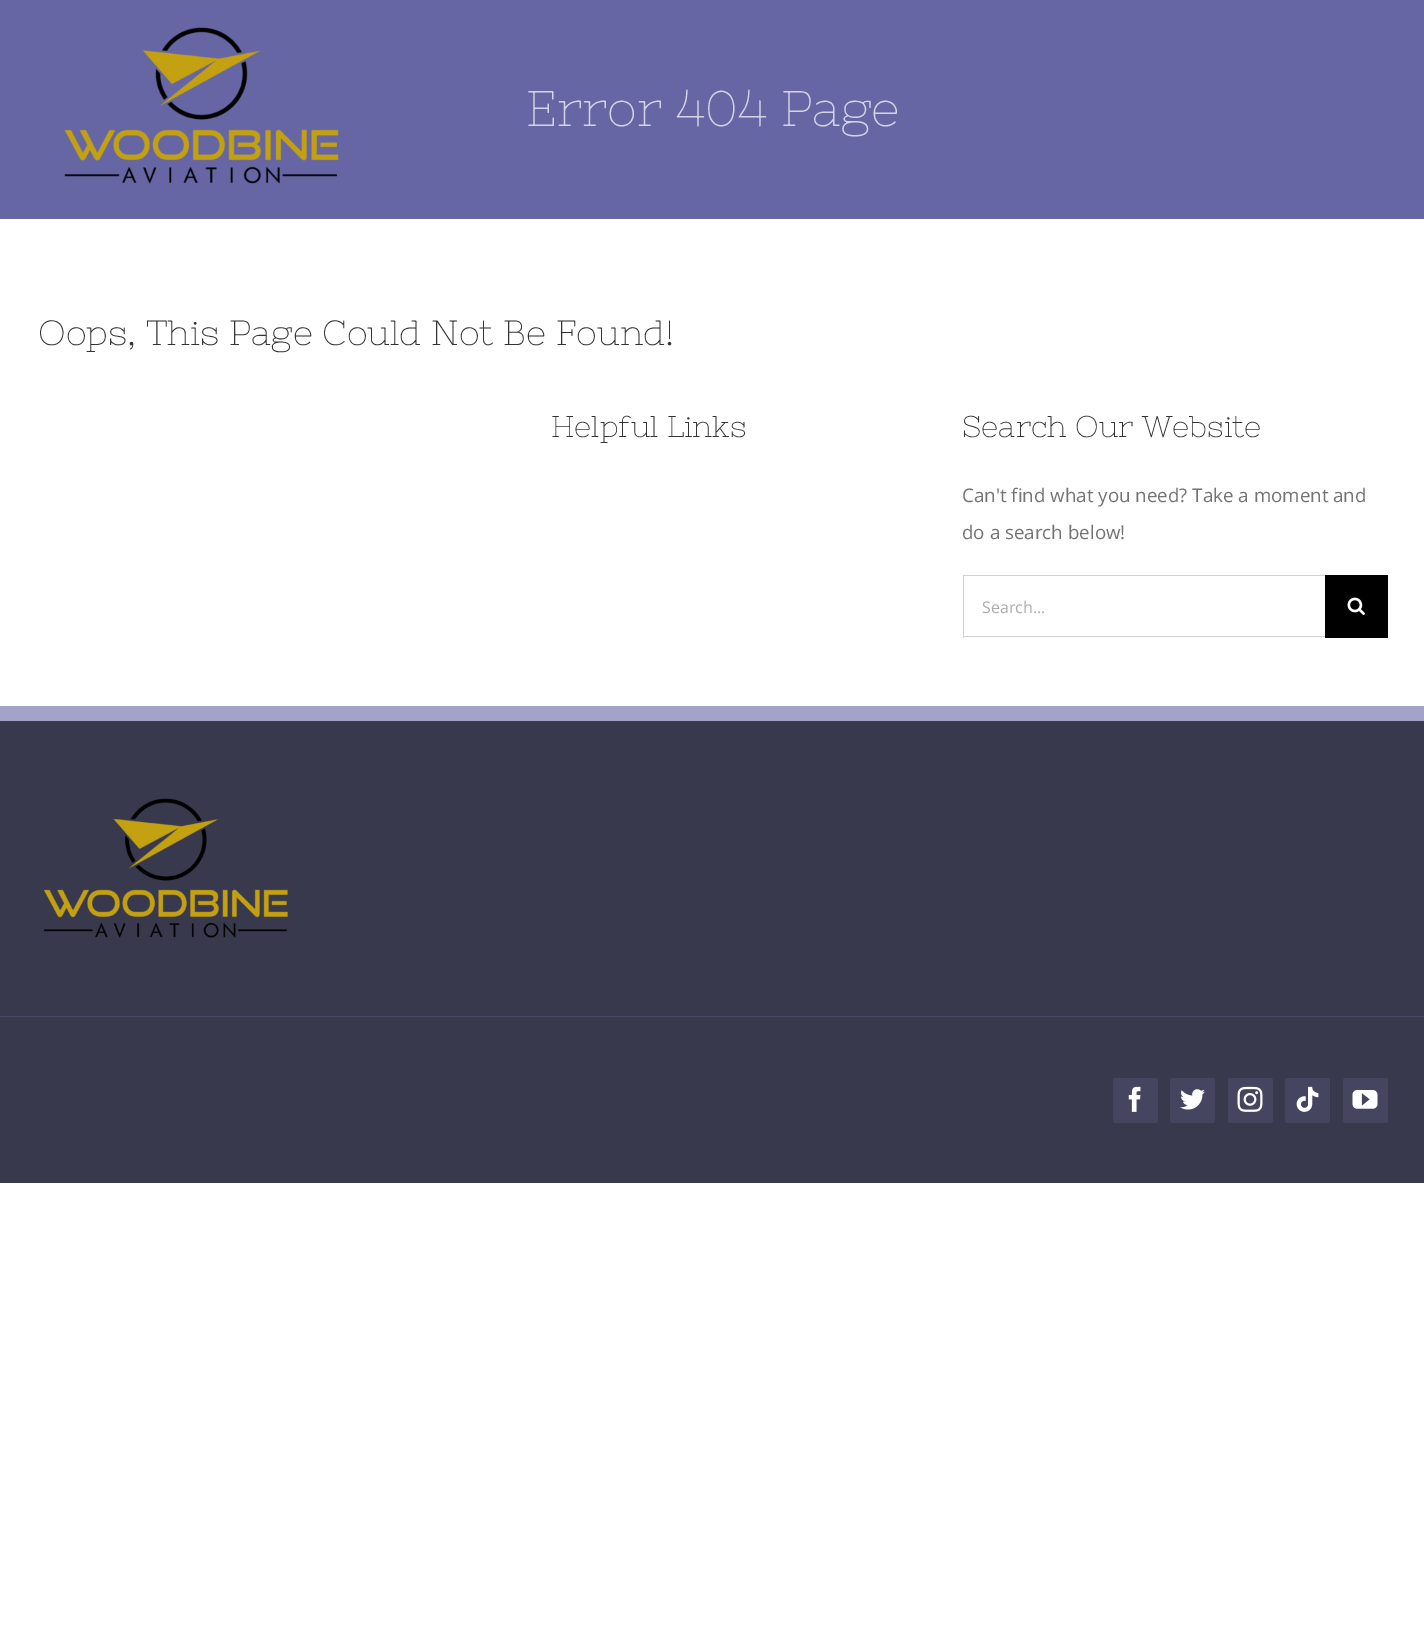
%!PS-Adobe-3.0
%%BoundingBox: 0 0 1424 1641
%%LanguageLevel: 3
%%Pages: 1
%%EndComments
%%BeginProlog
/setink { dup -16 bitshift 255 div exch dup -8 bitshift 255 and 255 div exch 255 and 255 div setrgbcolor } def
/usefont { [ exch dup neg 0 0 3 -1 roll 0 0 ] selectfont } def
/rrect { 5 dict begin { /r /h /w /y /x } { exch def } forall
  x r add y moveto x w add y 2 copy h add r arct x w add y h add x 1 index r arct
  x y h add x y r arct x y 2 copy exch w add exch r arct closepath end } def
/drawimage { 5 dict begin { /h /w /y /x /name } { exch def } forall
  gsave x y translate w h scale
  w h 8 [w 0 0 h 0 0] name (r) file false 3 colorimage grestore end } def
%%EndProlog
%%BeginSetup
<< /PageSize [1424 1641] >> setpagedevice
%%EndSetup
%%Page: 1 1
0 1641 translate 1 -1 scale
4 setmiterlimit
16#FFFFFF setink
0 0 1424 1641 rectfill
16#6666A4 setink
0 0 1424 219 rectfill
(img1.raw) 64 27 275 157 drawimage
/NixieOne-Regular 50 usefont
16#D3D3E5 setink
526 126 moveto (Error 404 Page) show
/NixieOne-Regular 35 usefont
16#333333 setink
38 345 moveto (Oops, This Page Could Not Be Found!) show
/NixieOne-Regular 30 usefont
551 437 moveto (Helpful Links) show
962 437 moveto (Search Our Website) show
/OpenSans-Regular 18.75 usefont
16#747474 setink
962 502 moveto (Can't find what you need? Take a moment and) show
962 539 moveto (do a search below!) show
[
    [963 575 362 1 16#D1D1D1]
    [963 636 362 1 16#D1D1D1]
    [963 575 1 63 16#D1D1D1]
] { aload pop setink rectfill } forall
/OpenSans-Regular 16 usefont
16#ABABAB setink
982 613 moveto (Search...) show
16#000000 setink
1325 575 63 63 rectfill
(img2.raw) 1347 597 18 18 drawimage
16#39394E setink
0 721 1424 295 rectfill
16#A3A3C8 setink
0 706 1424 15 rectfill
(img3.raw) 43 798 245 140 drawimage
16#39394E setink
0 1017 1424 166 rectfill
16#474768 setink
0 1016 1424 1 rectfill
16#45455F setink
1113 1078 45 45 2.5 rrect fill
(img4.raw) 1128 1086 13 26 drawimage
1170 1078 45 45 2.5 rrect fill
(img5.raw) 1180 1089 25 21 drawimage
1228 1078 45 45 2.5 rrect fill
(img6.raw) 1237 1086 26 26 drawimage
1285 1078 45 45 2.5 rrect fill
(img7.raw) 1296 1086 23 26 drawimage
1343 1078 45 45 2.5 rrect fill
(img8.raw) 1352 1090 26 19 drawimage
showpage
%%EOF
